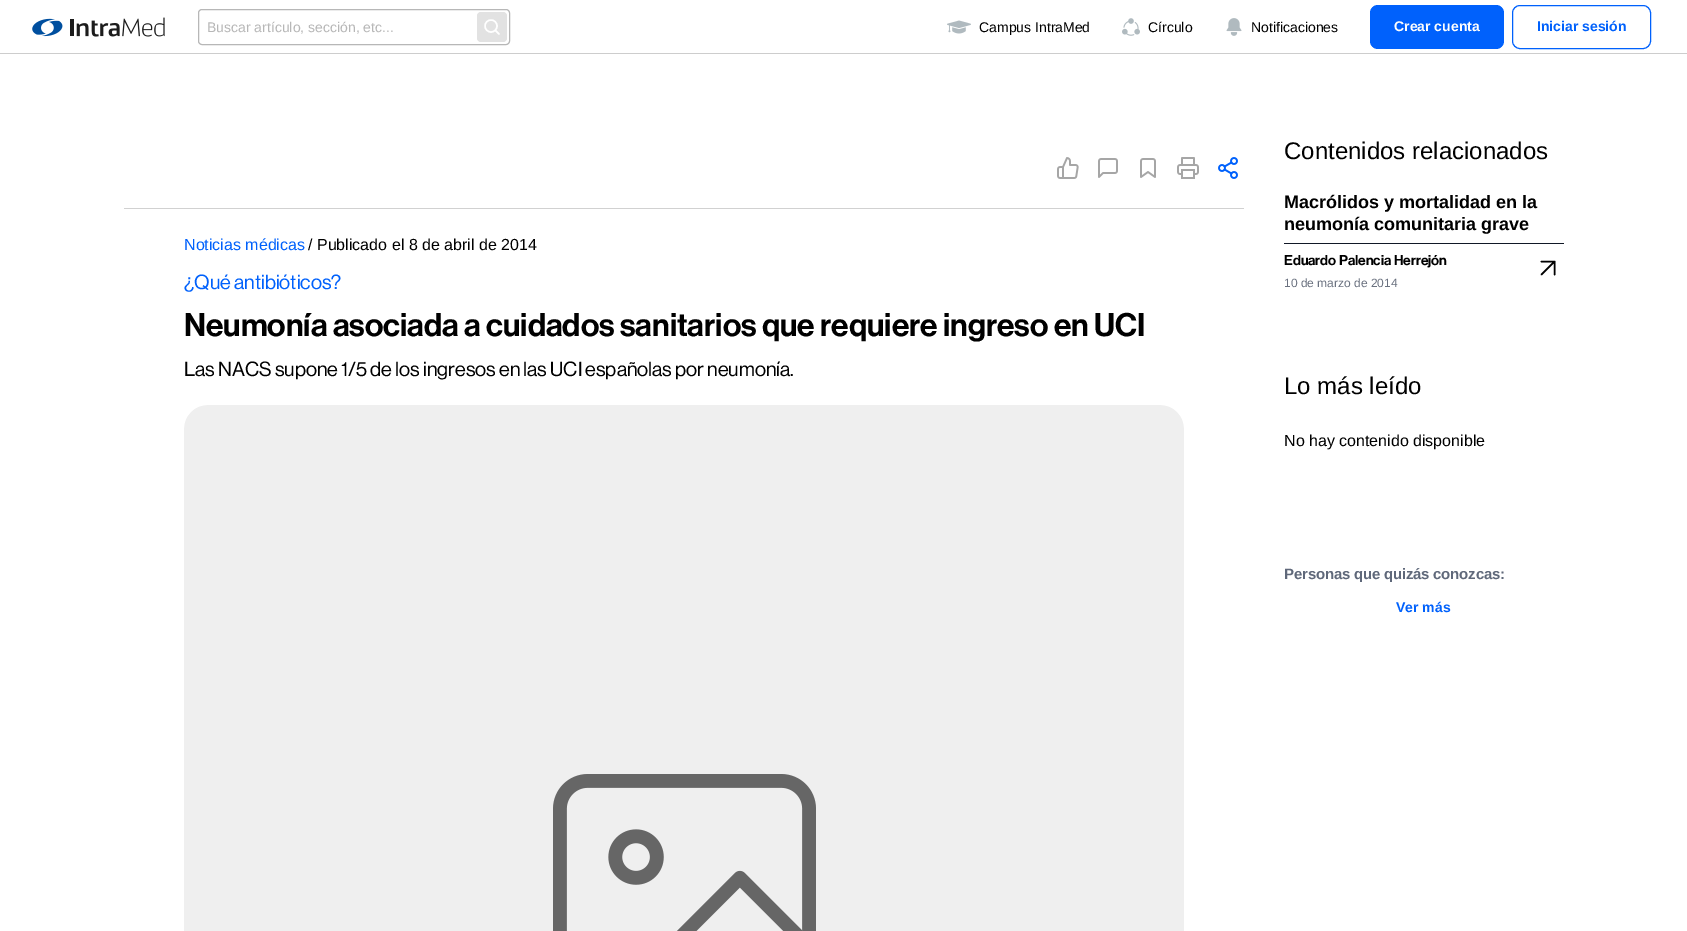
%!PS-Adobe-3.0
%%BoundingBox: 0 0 1687 931
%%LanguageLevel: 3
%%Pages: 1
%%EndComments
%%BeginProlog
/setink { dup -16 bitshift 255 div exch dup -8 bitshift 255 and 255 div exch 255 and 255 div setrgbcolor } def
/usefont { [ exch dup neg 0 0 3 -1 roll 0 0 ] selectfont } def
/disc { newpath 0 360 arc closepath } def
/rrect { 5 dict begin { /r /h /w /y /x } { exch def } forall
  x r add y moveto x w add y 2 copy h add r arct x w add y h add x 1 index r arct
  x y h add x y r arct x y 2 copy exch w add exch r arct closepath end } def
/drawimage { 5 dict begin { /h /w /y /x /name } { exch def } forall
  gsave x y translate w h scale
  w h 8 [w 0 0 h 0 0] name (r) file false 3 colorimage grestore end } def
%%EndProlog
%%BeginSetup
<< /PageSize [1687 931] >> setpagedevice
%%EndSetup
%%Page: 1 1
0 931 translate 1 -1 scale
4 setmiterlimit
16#FFFFFF setink
0 0 1687 931 rectfill
16#CDCDCD setink
0 53 1687 1 rectfill
(img1.raw) 32 17 133 20 drawimage
16#B7B7B7 setink
198.5 9.5 311 35 3.5 rrect stroke
/LiberationSans-Regular 14 usefont
207 32 moveto (Buscar artículo, sección, etc...) show
16#E2E2E2 setink
477 12 30 30 4 rrect fill
16#FFFFFF setink
1.5 setlinewidth
491 26 6 disc stroke
1 setlinecap
1 setlinejoin
499 34 moveto 495.5 30.5 lineto stroke
(img2.raw) 947 20 24 14 drawimage
16#000000 setink
979 32 moveto (Campus IntraMed) show
(img3.raw) 1122 18 18 18 drawimage
1148 32 moveto (Círculo) show
(img4.raw) 1226 18 16 18 drawimage
1251 32 moveto (Notificaciones) show
16#0061FC setink
1370 5 134 44 8 rrect fill
/LiberationSans-Bold 14 usefont
16#FDFDFD setink
1394 31 moveto (Crear cuenta) show
16#0061FC setink
1 setlinewidth
0 setlinecap
0 setlinejoin
1512.5 5.5 138 43 7.5 rrect stroke
1537 31 moveto (Iniciar sesión) show
(img5.raw) 1057 157 22 22 drawimage
(img6.raw) 1098 158 20 20 drawimage
(img7.raw) 1140 158 16 20 drawimage
(img8.raw) 1177 157 22 22 drawimage
(img9.raw) 1218 157 20 22 drawimage
16#D1D1D1 setink
124 208 1120 1 rectfill
/LiberationSans-Regular 16 usefont
16#0061FC setink
184 250 moveto (Noticias médicas) show
16#000000 setink
308 250 moveto (/ Publicado el 8 de abril de 2014) show
/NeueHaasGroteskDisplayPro-Medium 20 usefont
16#0061FC setink
184 289 moveto (¿Qué antibióticos?) show
/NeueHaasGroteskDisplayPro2-Medium 32 usefont
16#000000 setink
184 336 moveto (Neumonía asociada a cuidados sanitarios que requiere ingreso en UCI) show
/NeueHaasGroteskDisplayPro-Medium 20 usefont
184 376 moveto (Las NACS supone 1/5 de los ingresos en las UCI españolas por neumonía.) show
(img10.raw) 184 405 1000 526 drawimage
/LiberationSans-Regular 24 usefont
1284 159 moveto (Contenidos relacionados) show
/LiberationSans-Bold 18 usefont
1284 208 moveto (Macrólidos y mortalidad en la) show
1284 230 moveto (neumonía comunitaria grave) show
16#111827 setink
1284 243 280 1 rectfill
/NeueHaasGroteskDisplayPro2-Medium 14 usefont
16#000000 setink
1284 265 moveto (Eduardo Palencia Herrejón) show
/LiberationSans-Regular 12 usefont
16#6B7280 setink
1284 287 moveto (10 de marzo de 2014) show
16#000000 setink
1.6 setlinewidth
1 setlinecap
1 setlinejoin
1541.5 274.5 moveto 1554.5 261.5 lineto 1541.5 261.5 moveto 1554.5 261.5 lineto 1554.5 274.5 lineto stroke
/LiberationSans-Regular 24 usefont
1284 394 moveto (Lo más leído) show
/LiberationSans-Regular 16 usefont
1284 446 moveto (No hay contenido disponible) show
/LiberationSans-Bold 15 usefont
16#5F687A setink
1284 579 moveto -0.2 0 (Personas que quizás conozcas:) ashow
/LiberationSans-Bold 14 usefont
16#0061FC setink
1396 612 moveto (Ver más) show
showpage
%%EOF
